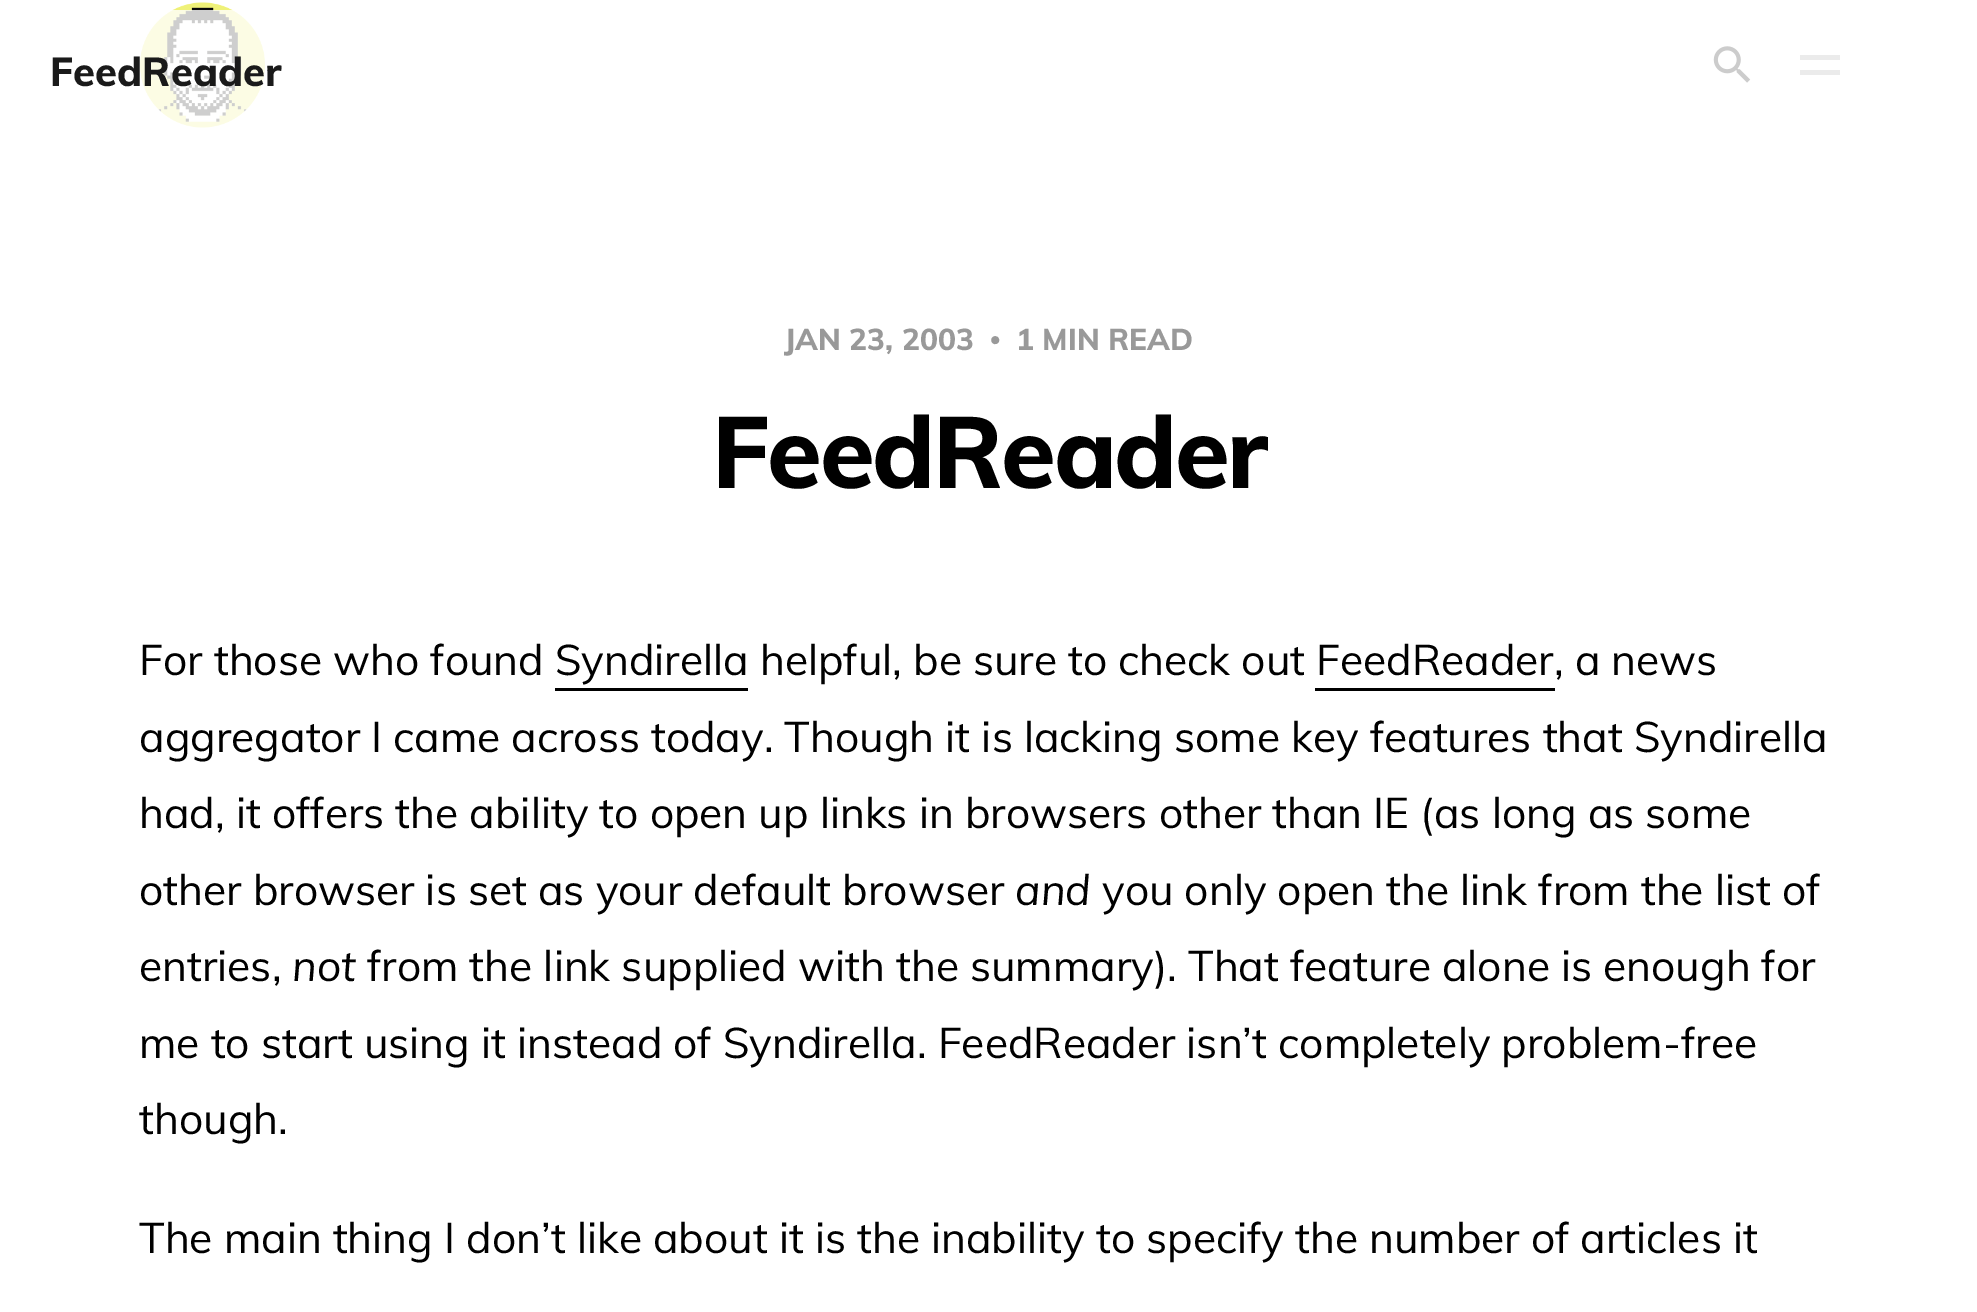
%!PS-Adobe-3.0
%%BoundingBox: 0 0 1977 1312
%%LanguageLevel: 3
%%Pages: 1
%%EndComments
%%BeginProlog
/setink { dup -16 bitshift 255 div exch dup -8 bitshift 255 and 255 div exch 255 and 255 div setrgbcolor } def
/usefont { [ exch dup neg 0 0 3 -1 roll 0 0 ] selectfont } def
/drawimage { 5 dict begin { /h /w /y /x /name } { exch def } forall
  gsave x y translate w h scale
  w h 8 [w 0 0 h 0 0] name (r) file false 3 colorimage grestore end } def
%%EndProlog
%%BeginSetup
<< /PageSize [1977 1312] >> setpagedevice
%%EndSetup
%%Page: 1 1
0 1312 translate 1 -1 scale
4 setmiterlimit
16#FFFFFF setink
0 0 1977 1312 rectfill
(img1.raw) 140 2 125 126 drawimage
(img2.raw) 1713 46 38 37 drawimage
16#EBEBEB setink
1800 55 40 5 rectfill
1800 70 40 5 rectfill
/Muli-ExtraBold 40 usefont
16#1A1A1A setink
50 86 moveto (FeedReader) show
/Muli-ExtraBold 30 usefont
16#999999 setink
784 350 moveto (JAN 23, 2003) show
/LiberationSerif-Bold 30 usefont
990 350 moveto (•) show
/Muli-ExtraBold 30 usefont
1016 350 moveto (1 MIN READ) show
/Muli-ExtraBold 100 usefont
16#000000 setink
712 488 moveto -2.5 0 (FeedReader) ashow
/Muli-Regular 42.5 usefont
139 675 moveto (For those who found Syndirella helpful, be sure to check out FeedReader, a news) show
555 688 193 3 rectfill
1315 688 240 3 rectfill
[
    [(aggregator I came across today. Though it is lacking some key features that Syndirella) 139 752]
    [(had, it offers the ability to open up links in browsers other than IE \(as long as some) 139 828]
    [(other browser is set as your default browser) 139 905]
] { aload pop moveto show } forall
/Muli-Italic 42.5 usefont
1015 905 moveto (and) show
/Muli-Regular 42.5 usefont
1102 905 moveto (you only open the link from the list of) show
139 981 moveto (entries,) show
/Muli-Italic 42.5 usefont
292 981 moveto (not) show
/Muli-Regular 42.5 usefont
[
    [(from the link supplied with the summary\). That feature alone is enough for) 367 981]
    [(me to start using it instead of Syndirella. FeedReader isn’t completely problem-free) 139 1058]
    [(though.) 139 1134]
    [(The main thing I don’t like about it is the inability to specify the number of articles it) 139 1253]
] { aload pop moveto show } forall
showpage
%%EOF
